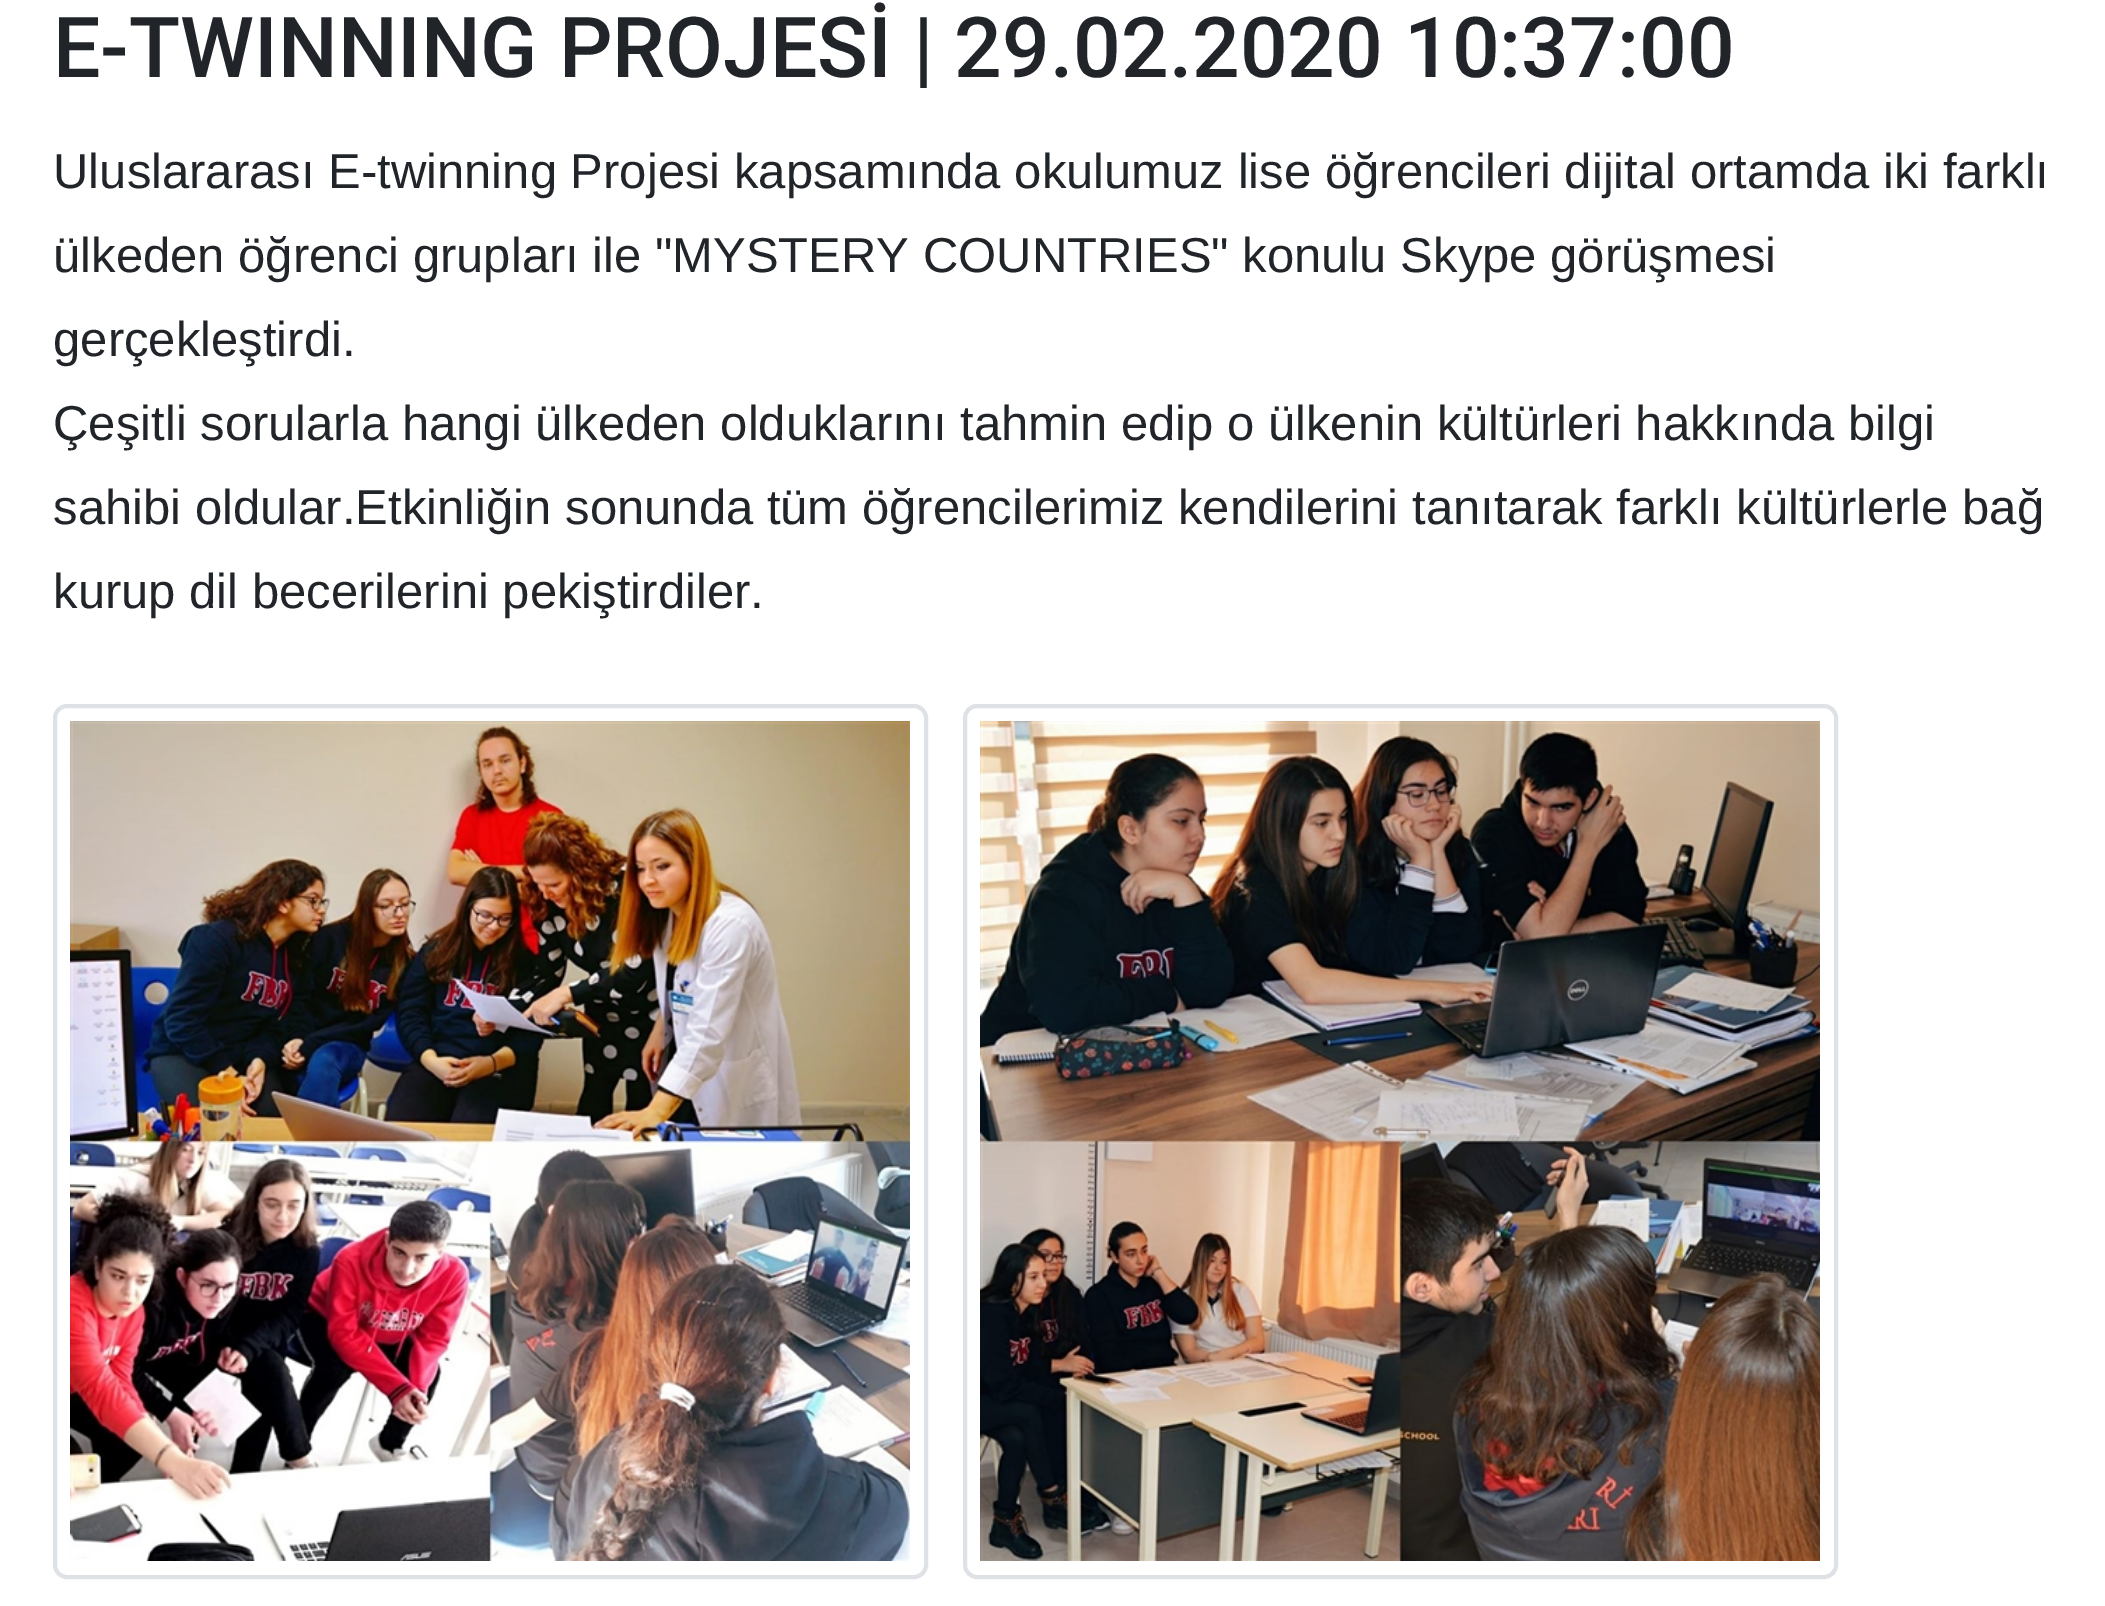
%!PS-Adobe-3.0
%%BoundingBox: 0 0 2105 1606
%%LanguageLevel: 3
%%Pages: 1
%%EndComments
%%BeginProlog
/setink { dup -16 bitshift 255 div exch dup -8 bitshift 255 and 255 div exch 255 and 255 div setrgbcolor } def
/usefont { [ exch dup neg 0 0 3 -1 roll 0 0 ] selectfont } def
/rrect { 5 dict begin { /r /h /w /y /x } { exch def } forall
  x r add y moveto x w add y 2 copy h add r arct x w add y h add x 1 index r arct
  x y h add x y r arct x y 2 copy exch w add exch r arct closepath end } def
/drawimage { 5 dict begin { /h /w /y /x /name } { exch def } forall
  gsave x y translate w h scale
  w h 8 [w 0 0 h 0 0] name (r) file false 3 colorimage grestore end } def
%%EndProlog
%%BeginSetup
<< /PageSize [2105 1606] >> setpagedevice
%%EndSetup
%%Page: 1 1
0 1606 translate 1 -1 scale
4 setmiterlimit
16#FFFFFF setink
0 0 2105 1606 rectfill
/Roboto-Medium 84 usefont
16#212529 setink
53 77 moveto (E-TWINNING PROJESİ | 29.02.2020 10:37:00) show
/LiberationSans-Regular 49 usefont
[
    [(Uluslararası E-twinning Projesi kapsamında okulumuz lise öğrencileri dijital ortamda iki farklı) 53 188]
    [(ülkeden öğrenci grupları ile "MYSTERY COUNTRIES" konulu Skype görüşmesi) 53 272]
    [(gerçekleştirdi.) 53 356]
    [(Çeşitli sorularla hangi ülkeden olduklarını tahmin edip o ülkenin kültürleri hakkında bilgi) 53 440]
    [(sahibi oldular.Etkinliğin sonunda tüm öğrencilerimiz kendilerini tanıtarak farklı kültürlerle bağ) 53 524]
    [(kurup dil becerilerini pekiştirdiler.) 53 608]
] { aload pop moveto show } forall
16#DEE2E6 setink
4 setlinewidth
55 706 871 871 12 rrect stroke
(img1.raw) 70 721 840 840 drawimage
965 706 871 871 12 rrect stroke
(img2.raw) 980 721 840 840 drawimage
showpage
%%EOF
